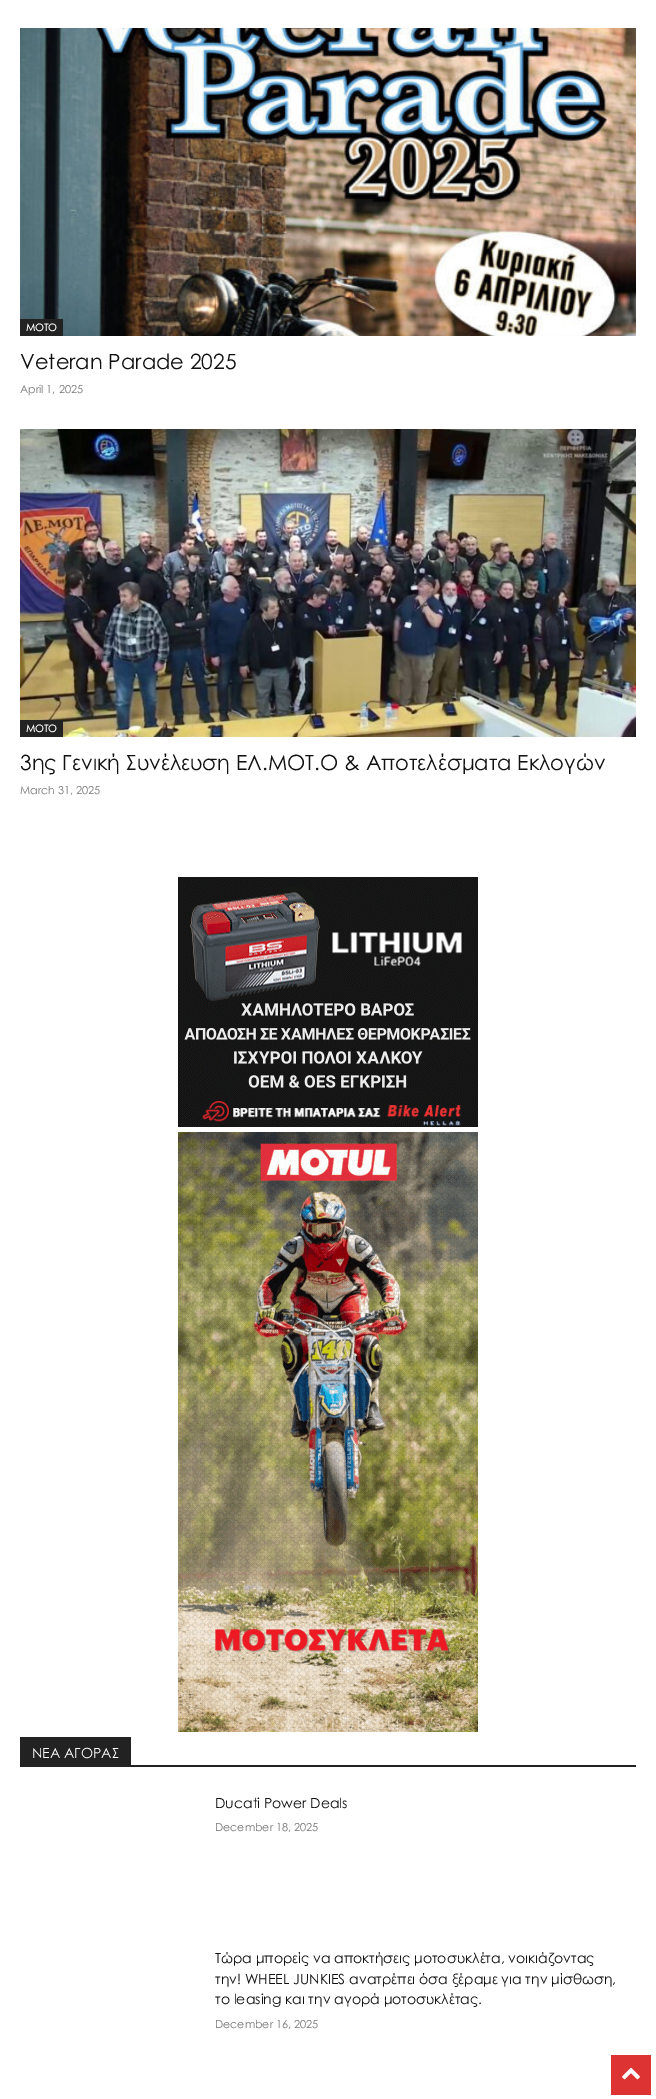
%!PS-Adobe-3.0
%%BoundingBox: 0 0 656 2099
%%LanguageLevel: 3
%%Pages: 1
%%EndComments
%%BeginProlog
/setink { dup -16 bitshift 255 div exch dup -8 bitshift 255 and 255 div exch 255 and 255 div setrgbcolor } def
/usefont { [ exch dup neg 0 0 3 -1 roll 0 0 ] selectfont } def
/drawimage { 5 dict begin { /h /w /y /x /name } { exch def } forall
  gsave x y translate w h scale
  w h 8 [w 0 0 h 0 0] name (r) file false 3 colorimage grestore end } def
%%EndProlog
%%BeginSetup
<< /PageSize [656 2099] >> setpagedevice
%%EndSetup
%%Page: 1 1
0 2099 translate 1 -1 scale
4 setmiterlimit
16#FFFFFF setink
0 0 656 2099 rectfill
(img1.raw) 20 28 616 308 drawimage
16#222222 setink
20 319 43 17 rectfill
/CenturyGothic-Bold 10 usefont
16#FFFFFF setink
26 331 moveto (MOTO) show
/CenturyGothic-Regular 21 usefont
16#111111 setink
20 369 moveto (Veteran Parade 2025) show
/CenturyGothic-Regular 11 usefont
16#767676 setink
20 393 moveto (April 1, 2025) show
(img2.raw) 20 429 616 308 drawimage
16#222222 setink
20 720 43 17 rectfill
/CenturyGothic-Bold 10 usefont
16#FFFFFF setink
26 732 moveto (MOTO) show
/CenturyGothic-Regular 21 usefont
16#111111 setink
20 770 moveto (3ης Γενική Συνέλευση ΕΛ.ΜΟΤ.Ο & Αποτελέσματα Εκλογών) show
/CenturyGothic-Regular 11 usefont
16#767676 setink
20 794 moveto (March 31, 2025) show
(img3.raw) 178 877 300 250 drawimage
(img4.raw) 178 1132 300 600 drawimage
16#222222 setink
20 1765 616 2 rectfill
20 1737 111 28 rectfill
/CenturyGothic-Regular 14 usefont
16#FFFFFF setink
32 1758 moveto (ΝΕΑ ΑΓΟΡΑΣ) show
16#111111 setink
215 1808 moveto (Ducati Power Deals) show
/CenturyGothic-Regular 11 usefont
16#767676 setink
215 1831 moveto (December 18, 2025) show
/CenturyGothic-Regular 14 usefont
16#111111 setink
[
    [(Τώρα μπορείς να αποκτήσεις μοτοσυκλέτα, νοικιάζοντας) 215 1963]
    [(την! WHEEL JUNKIES ανατρέπει όσα ξέραμε για την μίσθωση,) 215 1984]
    [(το leasing και την αγορά μοτοσυκλέτας.) 215 2004]
] { aload pop moveto show } forall
/CenturyGothic-Regular 11 usefont
16#767676 setink
215 2028 moveto (December 16, 2025) show
16#DD3333 setink
611 2055 40 40 rectfill
(img5.raw) 622 2067 18 13 drawimage
showpage
%%EOF
